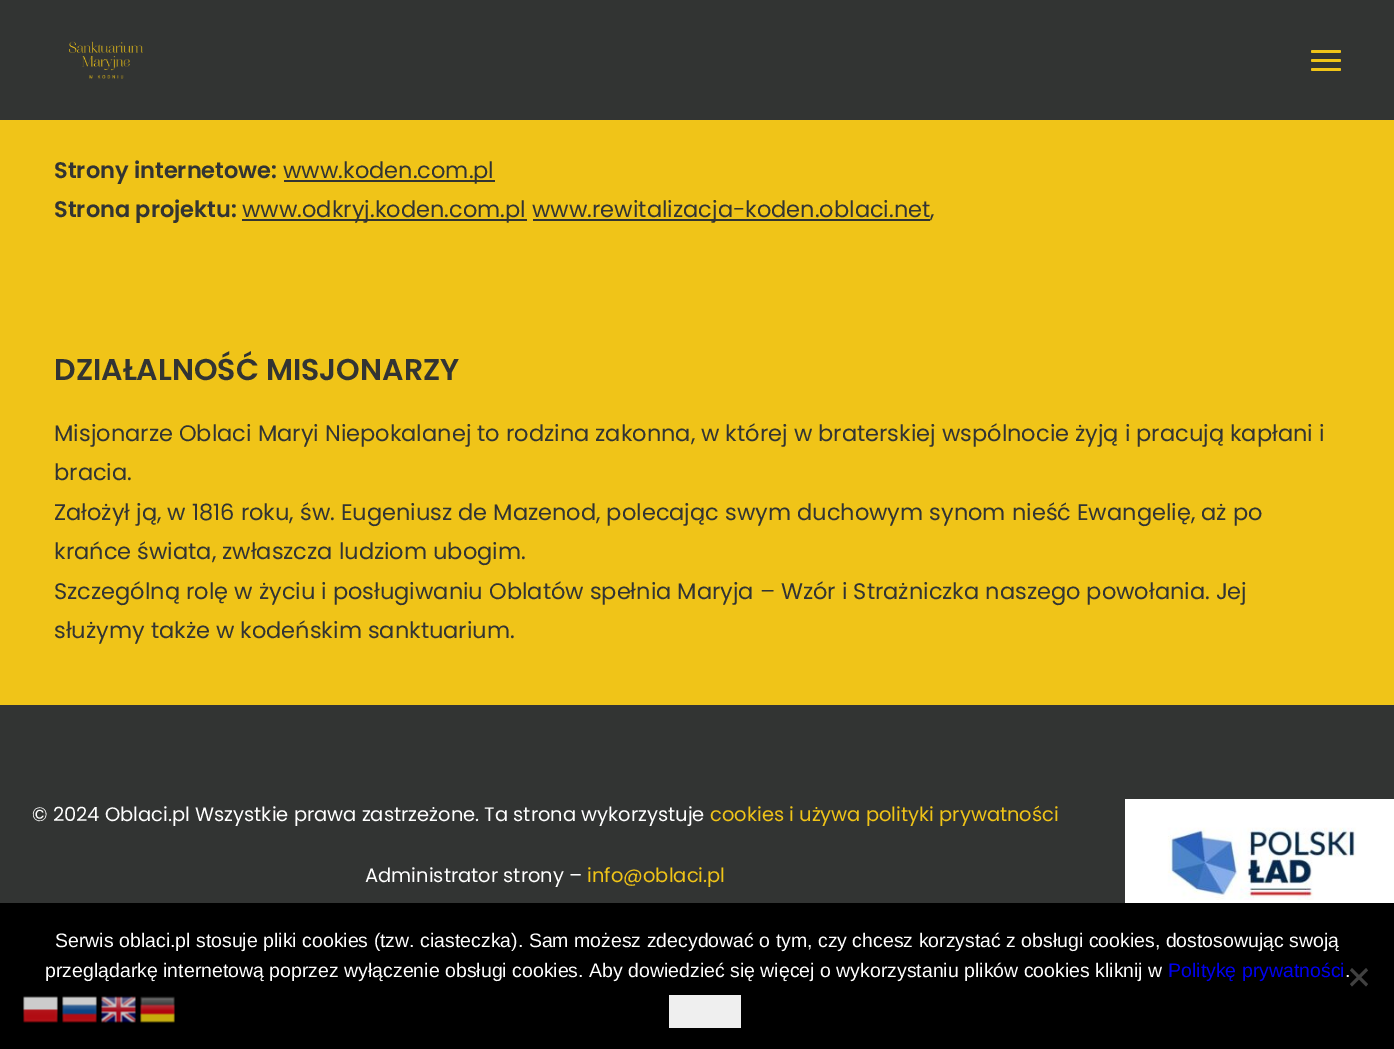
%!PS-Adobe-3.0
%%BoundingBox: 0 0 1394 1049
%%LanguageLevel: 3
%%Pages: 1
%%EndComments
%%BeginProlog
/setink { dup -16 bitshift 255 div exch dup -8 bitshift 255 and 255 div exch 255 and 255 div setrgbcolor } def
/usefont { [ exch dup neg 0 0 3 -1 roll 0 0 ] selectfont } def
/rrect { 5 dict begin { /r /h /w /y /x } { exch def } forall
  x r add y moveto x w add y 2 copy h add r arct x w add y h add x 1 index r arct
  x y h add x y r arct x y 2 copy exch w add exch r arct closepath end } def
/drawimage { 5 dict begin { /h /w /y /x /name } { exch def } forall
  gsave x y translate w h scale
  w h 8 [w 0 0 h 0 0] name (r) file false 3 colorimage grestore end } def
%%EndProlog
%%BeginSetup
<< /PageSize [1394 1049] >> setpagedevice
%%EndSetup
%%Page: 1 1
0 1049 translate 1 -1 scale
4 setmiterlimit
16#F0C418 setink
0 0 1394 1049 rectfill
16#323433 setink
0 0 1394 120 rectfill
(img1.raw) 69 41 74 38 drawimage
16#F0C418 setink
1311 59 30 3 1.5 rrect fill
1311 50 30 3 1.5 rrect fill
1311 68 30 3 1.5 rrect fill
/Poppins-SemiBold 22.5 usefont
16#323433 setink
54 178 moveto (Strony internetowe:) show
284 180 211 2 rectfill
/Poppins-Regular 22.5 usefont
283 178 moveto (www.koden.com.pl) show
/Poppins-SemiBold 22.5 usefont
54 217 moveto (Strona projektu:) show
242 219 285 2 rectfill
/Poppins-Regular 22.5 usefont
242 217 moveto (www.odkryj.koden.com.pl) show
533 219 397 2 rectfill
532 217 moveto (www.rewitalizacja-koden.oblaci.net,) show
/Poppins-SemiBold 30 usefont
54 380 moveto (DZIAŁALNOŚĆ MISJONARZY) show
/Poppins-Regular 22.5 usefont
[
    [(Misjonarze Oblaci Maryi Niepokalanej to rodzina zakonna, w której w braterskiej wspólnocie żyją i pracują kapłani i) 54 441]
    [(bracia.) 54 480]
    [(Założył ją, w 1816 roku, św. Eugeniusz de Mazenod, polecając swym duchowym synom nieść Ewangelię, aż po) 54 520]
    [(krańce świata, zwłaszcza ludziom ubogim.) 54 559]
    [(Szczególną rolę w życiu i posługiwaniu Oblatów spełnia Maryja – Wzór i Strażniczka naszego powołania. Jej) 54 599]
    [(służymy także w kodeńskim sanktuarium.) 54 638]
] { aload pop moveto show } forall
0 705 1394 198 rectfill
/Poppins-Regular 19.5 usefont
16#FFFFFF setink
32 821 moveto (© 2024 Oblaci.pl Wszystkie prawa zastrzeżone. Ta strona wykorzystuje) show
16#F0C418 setink
710 821 moveto (cookies i używa polityki prywatności) show
(img2.raw) 1125 799 269 104 drawimage
16#FFFFFF setink
365 882 moveto (Administrator strony –) show
16#F0C418 setink
587 882 moveto (info@oblaci.pl) show
16#000000 setink
0 903 1394 146 rectfill
/LiberationSans-Regular 19.5 usefont
16#FFFFFF setink
55 947 moveto (Serwis oblaci.pl stosuje pliki cookies \(tzw. ciasteczka\). Sam możesz zdecydować o tym, czy chcesz korzystać z obsługi cookies, dostosowując swoją) show
45 977 moveto (przeglądarkę internetową poprzez wyłączenie obsługi cookies. Aby dowiedzieć się więcej o wykorzystaniu plików cookies kliknij w) show
16#0000EE setink
1168 977 moveto (Politykę prywatności) show
16#FFFFFF setink
1345 977 moveto (.) show
16#404040 setink
1366 968 moveto 1368 970.5 lineto 1352 986.5 lineto 1350 984 lineto closepath fill
1350 970.5 moveto 1352 968 lineto 1368 984 lineto 1366 986.5 lineto closepath fill
16#EFEFEF setink
669 995 72 33 rectfill
(img3.raw) 23 996 35 27 drawimage
(img4.raw) 62 996 35 27 drawimage
(img5.raw) 101 996 35 27 drawimage
(img6.raw) 140 996 35 27 drawimage
showpage
%%EOF
